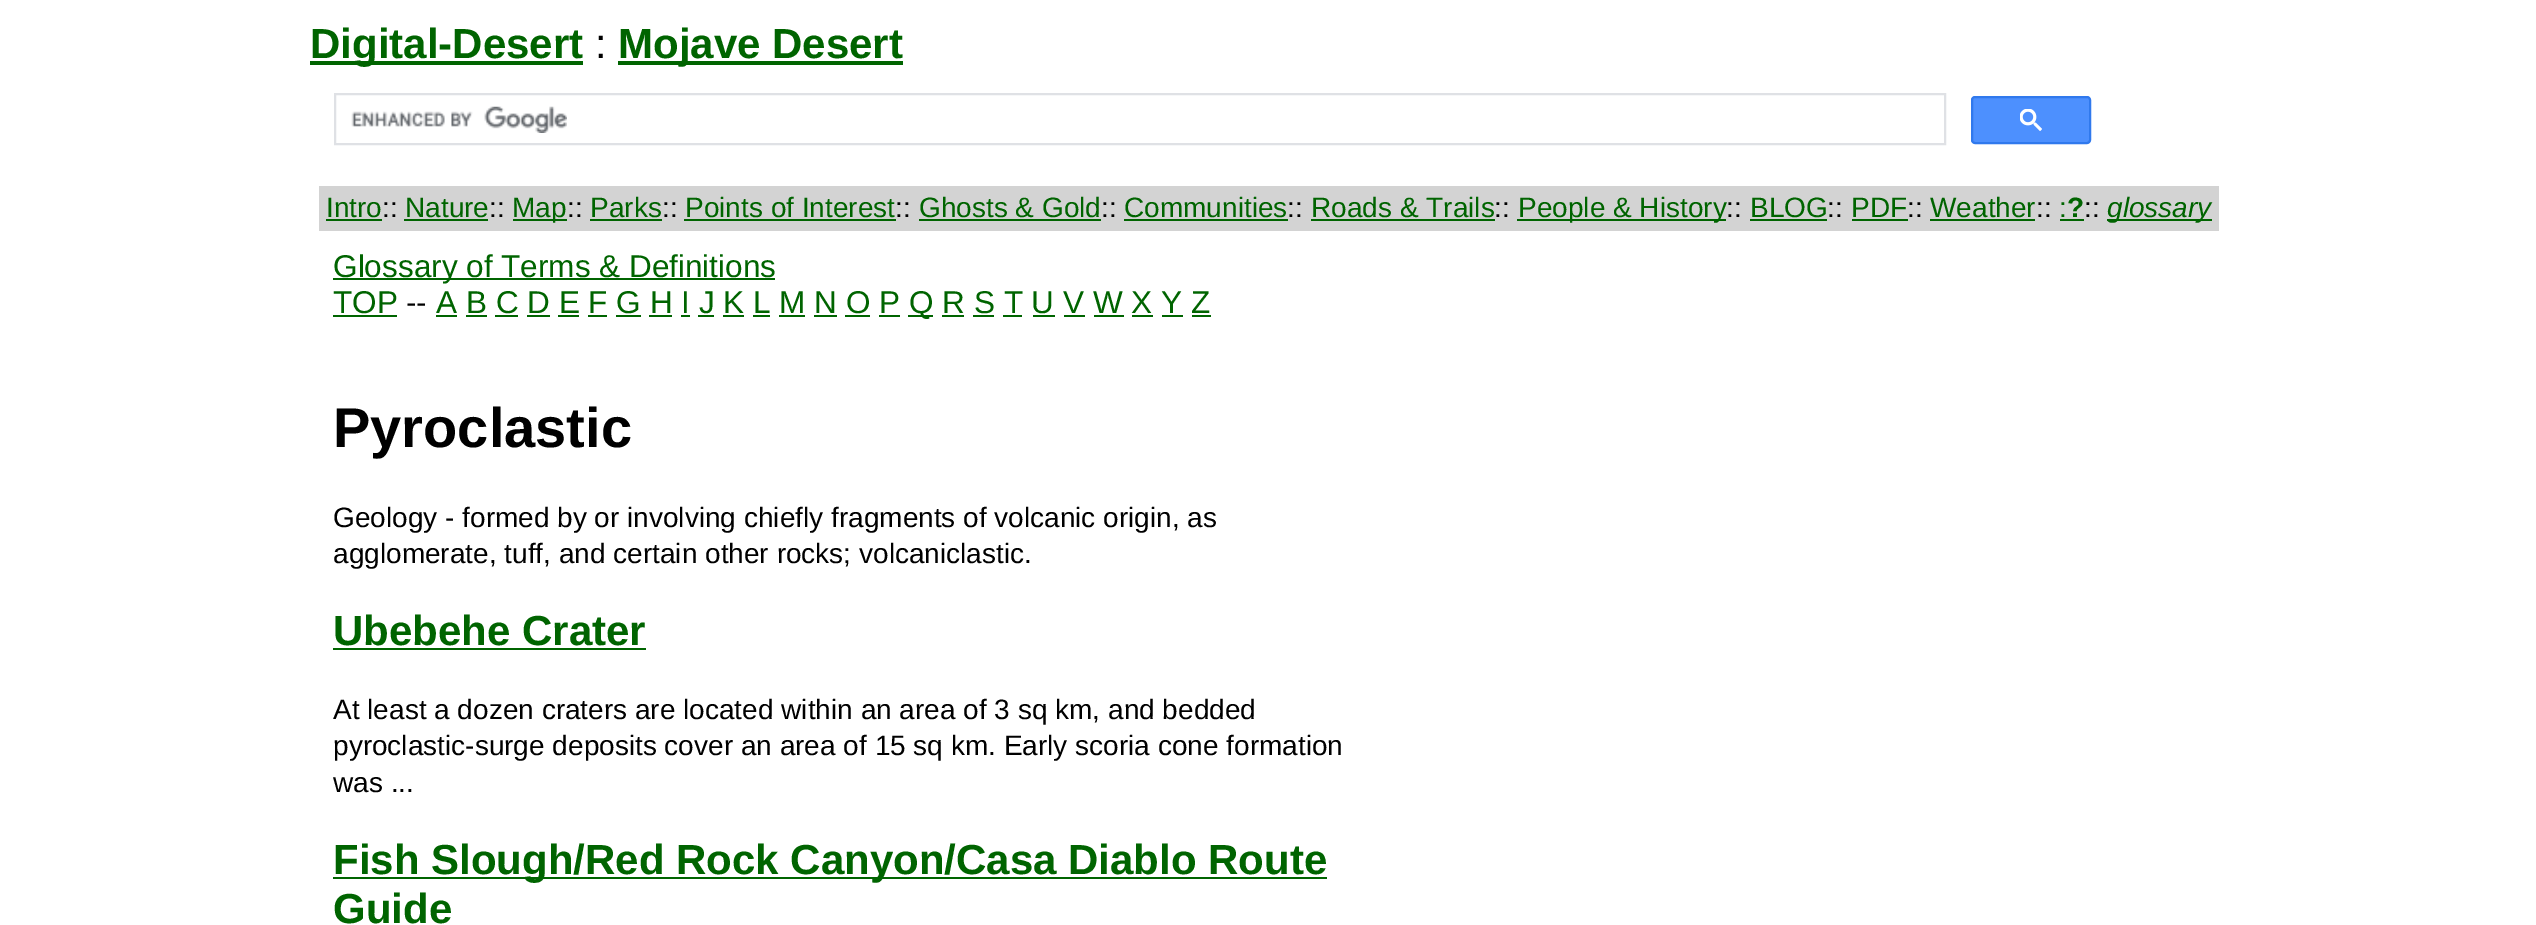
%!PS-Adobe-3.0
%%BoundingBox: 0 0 2536 925
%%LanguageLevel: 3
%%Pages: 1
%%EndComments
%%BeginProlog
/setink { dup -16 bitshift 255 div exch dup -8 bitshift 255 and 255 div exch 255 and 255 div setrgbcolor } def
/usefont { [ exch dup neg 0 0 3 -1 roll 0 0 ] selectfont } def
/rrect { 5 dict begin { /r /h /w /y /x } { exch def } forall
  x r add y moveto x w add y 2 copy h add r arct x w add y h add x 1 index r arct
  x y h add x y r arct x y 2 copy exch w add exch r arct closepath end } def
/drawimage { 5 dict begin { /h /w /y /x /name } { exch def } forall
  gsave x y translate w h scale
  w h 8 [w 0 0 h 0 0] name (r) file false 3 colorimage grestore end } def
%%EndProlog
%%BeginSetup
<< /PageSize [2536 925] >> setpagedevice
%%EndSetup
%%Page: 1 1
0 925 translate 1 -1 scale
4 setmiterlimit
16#FFFFFF setink
0 0 2536 925 rectfill
16#006400 setink
310 61 273 4 rectfill
/LiberationSans-Bold 42 usefont
310 58 moveto (Digital-Desert) show
/LiberationSans-Regular 42 usefont
16#000000 setink
595 58 moveto (:) show
16#006400 setink
618 61 285 4 rectfill
/LiberationSans-Bold 42 usefont
618 58 moveto (Mojave Desert) show
16#DFE1E5 setink
2 setlinewidth
335 94 1610 50 rectstroke
(img1.raw) 351 106 216 27 drawimage
16#4D90FE setink
1972 97 118 46 3 rrect gsave fill grestore
16#3079ED setink
stroke
(img2.raw) 2020 109 22 22 drawimage
16#D3D3D3 setink
319 186 1900 45 rectfill
/LiberationSans-Regular 28 usefont
16#006400 setink
326 217 moveto (Intro) show
16#000000 setink
382 217 moveto (::) show
16#006400 setink
326 219 56 2 rectfill
405 217 moveto (Nature) show
16#000000 setink
489 217 moveto (::) show
16#006400 setink
404 219 84 2 rectfill
513 219 54 2 rectfill
512 217 moveto (Map) show
16#000000 setink
567 217 moveto (::) show
16#006400 setink
590 217 moveto (Parks) show
16#000000 setink
662 217 moveto (::) show
16#006400 setink
590 219 72 2 rectfill
685 217 moveto (Points of Interest) show
16#000000 setink
895 217 moveto (::) show
16#006400 setink
684 219 212 2 rectfill
919 217 moveto (Ghosts & Gold) show
16#000000 setink
1101 217 moveto (::) show
16#006400 setink
919 219 182 2 rectfill
1124 217 moveto (Communities) show
16#000000 setink
1287 217 moveto (::) show
16#006400 setink
1124 219 164 2 rectfill
1311 217 moveto (Roads & Trails) show
16#000000 setink
1494 217 moveto (::) show
16#006400 setink
1311 219 184 2 rectfill
1517 219 209 2 rectfill
1518 217 moveto (People & History) show
16#000000 setink
1726 217 moveto (::) show
16#006400 setink
1750 217 moveto (BLOG) show
16#000000 setink
1827 217 moveto (::) show
16#006400 setink
1750 219 77 2 rectfill
1851 217 moveto (PDF) show
16#000000 setink
1907 217 moveto (::) show
16#006400 setink
1852 219 56 2 rectfill
1930 217 moveto (Weather) show
16#000000 setink
2036 217 moveto (::) show
16#006400 setink
1930 219 105 2 rectfill
2059 217 moveto (:) show
2060 219 24 2 rectfill
/LiberationSans-Bold 28 usefont
2067 217 moveto (?) show
/LiberationSans-Regular 28 usefont
16#000000 setink
2084 217 moveto (::) show
16#006400 setink
2107 219 105 2 rectfill
/LiberationSans-Italic 28 usefont
2107 217 moveto (glossary) show
333 278 442 2 rectfill
/LiberationSans-Regular 31.5 usefont
333 277 moveto (Glossary of Terms & Definitions) show
333 313 moveto (TOP) show
333 315 64 2 rectfill
16#000000 setink
406 313 moveto (--) show
16#006400 setink
436 313 moveto (A B C D E F G H I J K L M N O P) show
436 315 21 2 rectfill
908 315 25 2 rectfill
909 313 moveto (Q R S T U V W X Y Z) show
[
    [466 315 21 2 16#006400]
    [495 315 23 2 16#006400]
    [527 315 23 2 16#006400]
    [558 315 21 2 16#006400]
    [588 315 19 2 16#006400]
    [616 315 25 2 16#006400]
    [649 315 23 2 16#006400]
    [681 315 9 2 16#006400]
    [698 315 16 2 16#006400]
    [723 315 21 2 16#006400]
    [753 315 17 2 16#006400]
    [779 315 26 2 16#006400]
    [814 315 23 2 16#006400]
    [845 315 25 2 16#006400]
    [879 315 21 2 16#006400]
    [942 315 22 2 16#006400]
    [973 315 21 2 16#006400]
    [1003 315 19 2 16#006400]
    [1033 315 22 2 16#006400]
    [1064 315 21 2 16#006400]
    [1094 315 30 2 16#006400]
    [1132 315 21 2 16#006400]
    [1162 315 21 2 16#006400]
    [1192 315 19 2 16#006400]
] { aload pop setink rectfill } forall
/LiberationSans-Bold 56 usefont
16#000000 setink
333 447 moveto (Pyroclastic) show
/LiberationSans-Regular 28 usefont
333 527 moveto (Geology - formed by or involving chiefly fragments of volcanic origin, as) show
333 563 moveto (agglomerate, tuff, and certain other rocks; volcaniclastic.) show
/LiberationSans-Bold 42 usefont
16#006400 setink
333 645 moveto (Ubebehe Crater) show
333 648 313 2 rectfill
/LiberationSans-Regular 28 usefont
16#000000 setink
[
    [(At least a dozen craters are located within an area of 3 sq km, and bedded) 333 719]
    [(pyroclastic-surge deposits cover an area of 15 sq km. Early scoria cone formation) 333 755]
    [(was ...) 333 792]
] { aload pop moveto show } forall
16#006400 setink
333 877 994 2 rectfill
/LiberationSans-Bold 42 usefont
333 874 moveto (Fish Slough/Red Rock Canyon/Casa Diablo Route) show
333 923 moveto (Guide) show
showpage
%%EOF
